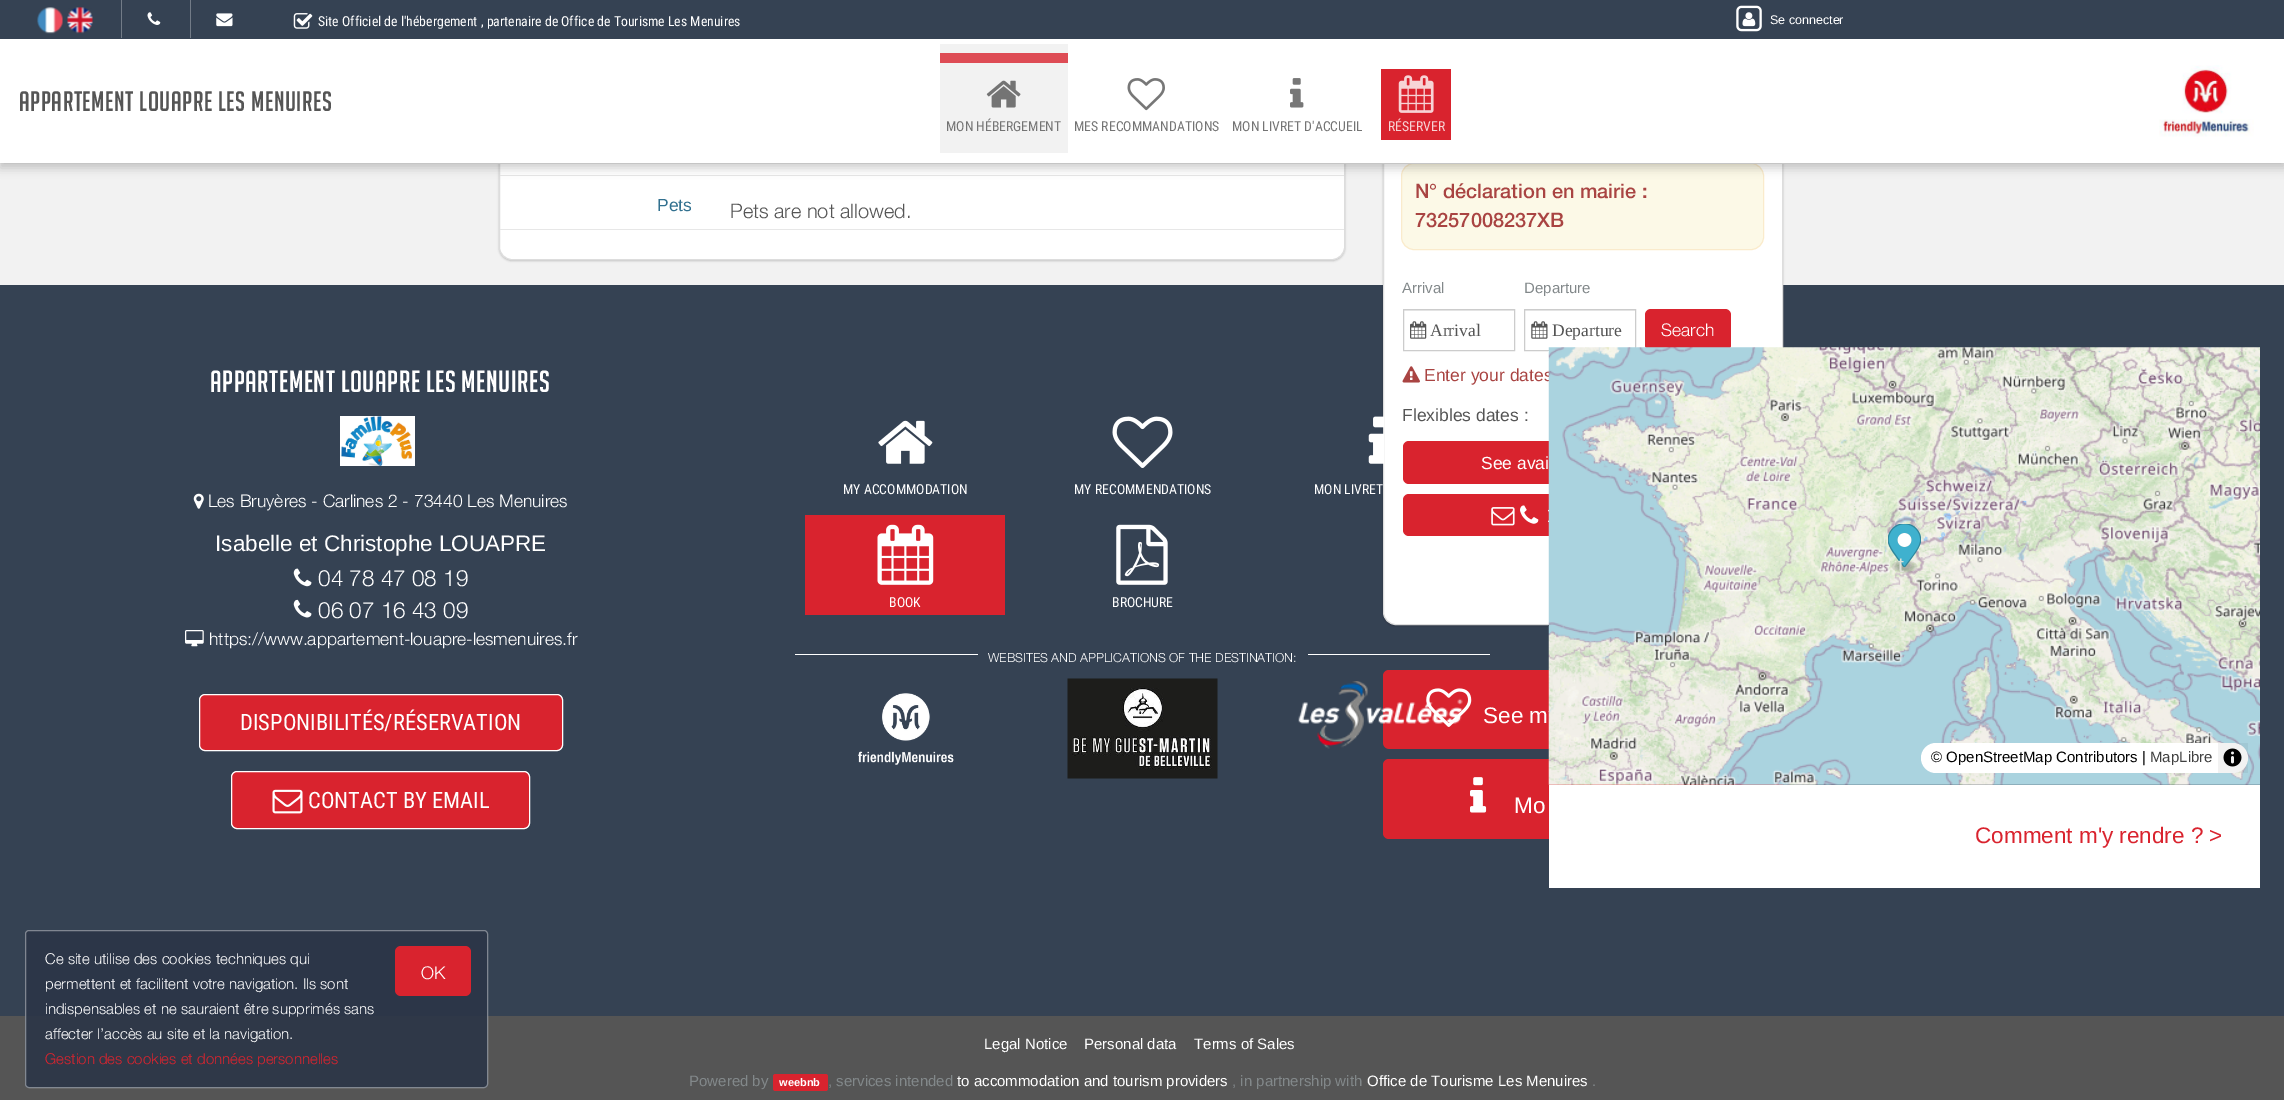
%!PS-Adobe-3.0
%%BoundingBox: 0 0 2284 1100
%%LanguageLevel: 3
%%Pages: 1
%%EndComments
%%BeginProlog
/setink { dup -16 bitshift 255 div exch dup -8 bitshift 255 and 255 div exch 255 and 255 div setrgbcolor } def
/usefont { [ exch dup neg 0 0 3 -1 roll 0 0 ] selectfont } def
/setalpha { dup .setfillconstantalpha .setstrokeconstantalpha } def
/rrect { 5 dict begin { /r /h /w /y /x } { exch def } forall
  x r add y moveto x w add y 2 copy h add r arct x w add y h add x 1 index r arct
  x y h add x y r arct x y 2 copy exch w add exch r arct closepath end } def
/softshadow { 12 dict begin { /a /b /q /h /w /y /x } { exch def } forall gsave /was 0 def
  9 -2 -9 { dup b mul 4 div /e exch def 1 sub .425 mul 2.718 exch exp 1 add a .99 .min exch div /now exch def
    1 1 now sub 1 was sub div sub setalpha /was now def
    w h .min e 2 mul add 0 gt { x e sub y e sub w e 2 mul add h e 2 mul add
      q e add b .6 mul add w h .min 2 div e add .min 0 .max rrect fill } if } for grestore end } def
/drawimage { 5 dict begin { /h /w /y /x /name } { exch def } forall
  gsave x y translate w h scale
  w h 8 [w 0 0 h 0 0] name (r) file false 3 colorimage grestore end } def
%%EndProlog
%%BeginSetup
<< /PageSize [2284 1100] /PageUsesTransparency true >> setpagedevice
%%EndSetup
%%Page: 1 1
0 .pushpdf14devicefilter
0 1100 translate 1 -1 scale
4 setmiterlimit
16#F2F2F2 setink
0 0 2284 1100 rectfill
16#000000 setink
499 -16 846 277 13 1 0.2 softshadow
16#FFFFFF setink
499.5 -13.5 845 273 12.5 rrect gsave fill grestore
16#DDDDDD setink
stroke
16#354253 setink
0 285 2284 731 rectfill
16#000000 setink
1383 151 400 475 13 1 0.2 softshadow
16#FFFFFF setink
1383.5 150.5 399 474 12.5 rrect gsave fill grestore
16#DDDDDD setink
stroke
16#FCF9E7 setink
1401.5 163.5 362 86 12.5 rrect gsave fill grestore
16#FAEBCC setink
stroke
16#EEEEEE setink
0 163 2284 1 rectfill
16#E7E7E7 setink
500 175 844 1 rectfill
16#000000 setink
0 5 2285 163 0 5 0.2 softshadow
16#FFFFFF setink
0 39 2284 124 rectfill
16#354253 setink
0 0 2284 39 rectfill
(img1.raw) 37 7 26 27 drawimage
(img2.raw) 67 7 26 27 drawimage
16#727B87 setink
121 0 1 38 rectfill
(img3.raw) 147 12 14 13 drawimage
190 0 1 38 rectfill
(img4.raw) 216 13 17 14 drawimage
(img5.raw) 293 13 20 16 drawimage
/RobotoCondensed-Regular 13.75 usefont
16#FFFFFF setink
318 26 moveto (Site Officiel de l'hébergement , partenaire de Office de Tourisme Les Menuires) show
(img6.raw) 1736 5 26 27 drawimage
(img7.raw) 1742 12 14 15 drawimage
/LiberationSans-Regular 12.5 usefont
1770 24 moveto (Se connecter) show
/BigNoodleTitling-Regular 27.5 usefont
16#555555 setink
19 111 moveto 0.6 0 (APPARTEMENT LOUAPRE LES MENUIRES) ashow
(img8.raw) 2159 65 95 72 drawimage
16#F2F2F2 setink
940 44 128 109 rectfill
16#DE4C55 setink
940 53 128 10 rectfill
(img9.raw) 986 80 35 28 drawimage
/RobotoCondensed-Regular 13.75 usefont
16#747474 setink
946 131 moveto (MON HÉBERGEMENT) show
(img10.raw) 1127 78 38 33 drawimage
1074 131 moveto (MES RECOMMANDATIONS) show
(img11.raw) 1290 78 14 30 drawimage
1232 131 moveto (MON LIVRET D'ACCUEIL) show
16#D9232E setink
1381 69 70 71 rectfill
(img12.raw) 1398 75 36 38 drawimage
16#F7D3D5 setink
1388 131 moveto (RÉSERVER) show
16#E7E7E7 setink
500 229 844 1 rectfill
/LiberationSans-Regular 17.5 usefont
16#31708F setink
657 211 moveto (Pets) show
/HelveticaNeue-Light 20 usefont
16#555555 setink
730 218 moveto (Pets are not allowed.) show
/HelveticaNeue-Medium 20 usefont
16#A94442 setink
1415 198 moveto (N° déclaration en mairie :) show
1415 227 moveto (73257008237XB) show
/LiberationSans-Regular 15 usefont
16#82888A setink
1402 293 moveto (Arrival) show
16#ECECEC setink
1404 310 110 1 rectfill
16#CCCCCC setink
1403.5 309.5 111 41 rectstroke
(img13.raw) 1410 321 17 18 drawimage
/LiberationSerif-Regular 17.5 usefont
16#555555 setink
1430 336 moveto (Arrival) show
/LiberationSans-Regular 15 usefont
16#82888A setink
1524 293 moveto (Departure) show
16#ECECEC setink
1525 310 110 1 rectfill
16#CCCCCC setink
1524.5 309.5 111 41 rectstroke
(img14.raw) 1531 321 17 18 drawimage
/LiberationSerif-Regular 17.5 usefont
16#555555 setink
1552 336 moveto (Departure) show
16#D9232E setink
1645 309 86 42 6 rrect fill
/HelveticaNeue-Light 17.5 usefont
16#FFFFFF setink
1661 336 moveto (Search) show
(img15.raw) 1402 366 18 17 drawimage
/LiberationSans-Regular 17.5 usefont
16#A94442 setink
1424 381 moveto (Enter your dates) show
16#555555 setink
1402 421 moveto (Flexibles dates :) show
16#D9232E setink
1403 441 360 43 6 rrect fill
16#FFFFFF setink
1481 469 moveto (See avai) show
16#D9232E setink
1403 494 360 42 6 rrect fill
(img16.raw) 1491 507 24 19 drawimage
(img17.raw) 1520 505 19 19 drawimage
1383 670 400 79 6 rrect fill
(img18.raw) 1426 688 46 39 drawimage
/LiberationSans-Regular 22.5 usefont
16#FFFFFF setink
1483 723 moveto (See m) show
16#D9232E setink
1383 759 400 80 6 rrect fill
(img19.raw) 1470 777 17 36 drawimage
16#FFFFFF setink
1514 813 moveto (Mo) show
/BigNoodleTitling-Regular 30 usefont
210 392 moveto 0.6 0 (APPARTEMENT LOUAPRE LES MENUIRES) ashow
(img20.raw) 340 416 75 50 drawimage
(img21.raw) 193 493 11 16 drawimage
/HelveticaNeue-Light 17.5 usefont
208 507 moveto (Les Bruyères - Carlines 2 - 73440 Les Menuires) show
/LiberationSans-Regular 22.5 usefont
215 551 moveto (Isabelle et Christophe LOUAPRE) show
(img22.raw) 293 568 19 19 drawimage
/HelveticaNeue-Light 22.5 usefont
318 586 moveto (04 78 47 08 19) show
(img23.raw) 293 599 19 19 drawimage
318 618 moveto (06 07 16 43 09) show
(img24.raw) 185 630 19 17 drawimage
/HelveticaNeue-Light 17.5 usefont
209 645 moveto (https://www.appartement-louapre-lesmenuires.fr) show
16#D9232E setink
199.5 694.5 363 56 5.5 rrect gsave fill grestore
16#FFFFFF setink
stroke
/RobotoCondensed-Regular 22.5 usefont
240 730 moveto (DISPONIBILITÉS/RÉSERVATION) show
16#D9232E setink
231.5 771.5 298 57 5.5 rrect gsave fill grestore
16#FFFFFF setink
stroke
(img25.raw) 272 789 31 25 drawimage
308 808 moveto (CONTACT BY EMAIL) show
(img26.raw) 878 420 55 44 drawimage
/RobotoCondensed-Regular 13.75 usefont
843 494 moveto (MY ACCOMMODATION) show
(img27.raw) 1112 416 61 52 drawimage
1074 494 moveto (MY RECOMMENDATIONS) show
(img28.raw) 1368 416 16 48 drawimage
1314 494 moveto (MON LIVRET) show
16#D9232E setink
805 515 200 100 rectfill
(img29.raw) 877 524 57 61 drawimage
16#FFFFFF setink
889 607 moveto (BOOK) show
(img30.raw) 1116 524 52 61 drawimage
1112 607 moveto (BROCHURE) show
795 654 183 1 rectfill
/HelveticaNeue-Light 12.5 usefont
988 662 moveto (WEBSITES AND APPLICATIONS OF THE DESTINATION:) show
1308 654 182 1 rectfill
(img31.raw) 858 693 96 72 drawimage
(img32.raw) 1067 678 151 101 drawimage
(img33.raw) 1298 681 165 68 drawimage
(img34.raw) 1548 347 712 438 drawimage
(img35.raw) 1888 524 33 49 drawimage
/LiberationSans-Regular 21 usefont
16#DFE1DA setink
1898 572 moveto (t) show
16#FFFFFF setink
1921 743 327 30 15 rrect fill
/LiberationSans-Regular 15 usefont
16#000000 setink
1931 762 moveto (© OpenStreetMap Contributors |) show
16#404040 setink
2150 762 moveto (MapLibre) show
0.05 setalpha
16#000000 setink
2218 743 30 30 rectfill
1 setalpha
(img36.raw) 2223 748 19 19 drawimage
16#FFFFFF setink
1549 785 711 103 rectfill
/LiberationSans-Regular 22.5 usefont
16#D9232E setink
1975 843 moveto (Comment m'y rendre ? >) show
16#555555 setink
0 1016 2284 84 rectfill
/LiberationSans-Regular 15 usefont
16#FFFFFF setink
[
    [(Legal Notice) 984 1049]
    [(Personal data) 1084 1049]
    [(Terms of Sales) 1194 1049]
] { aload pop moveto show } forall
16#82888A setink
689 1086 moveto (Powered by) show
16#D9232E setink
773 1074 55 17 2.5 rrect fill
/LiberationSans-Bold 11 usefont
16#FFFFFF setink
779 1086 moveto (weebnb) show
/LiberationSans-Regular 15 usefont
16#82888A setink
828 1086 moveto (, services intended) show
16#FFFFFF setink
957 1086 moveto (to accommodation and tourism providers) show
16#82888A setink
1232 1086 moveto (, in partnership with) show
16#FFFFFF setink
1367 1086 moveto (Office de Tourisme Les Menuires) show
16#82888A setink
1592 1086 moveto (.) show
0.9 setalpha
16#2B3547 setink
25 930 463 158 4 rrect fill
0.4 setalpha
16#FFFFFF setink
25.5 930.5 462 157 3.5 rrect stroke
/HelveticaNeue-Light 15 usefont
1 setalpha
45 964 moveto (Ce site utilise des cookies techniques qui) show
16#D9232E setink
395 946 76 50 6 rrect fill
/HelveticaNeue-Light 17.5 usefont
16#FFFFFF setink
421 979 moveto (OK) show
/HelveticaNeue-Light 15 usefont
[
    [(permettent et facilitent votre navigation. Ils sont) 45 989]
    [(indispensables et ne sauraient être supprimés sans) 45 1014]
    [(affecter l’accès au site et la navigation.) 45 1039]
] { aload pop moveto show } forall
16#D9232E setink
45 1064 moveto (Gestion des cookies et données personnelles) show
.poppdf14devicefilter showpage
%%EOF
